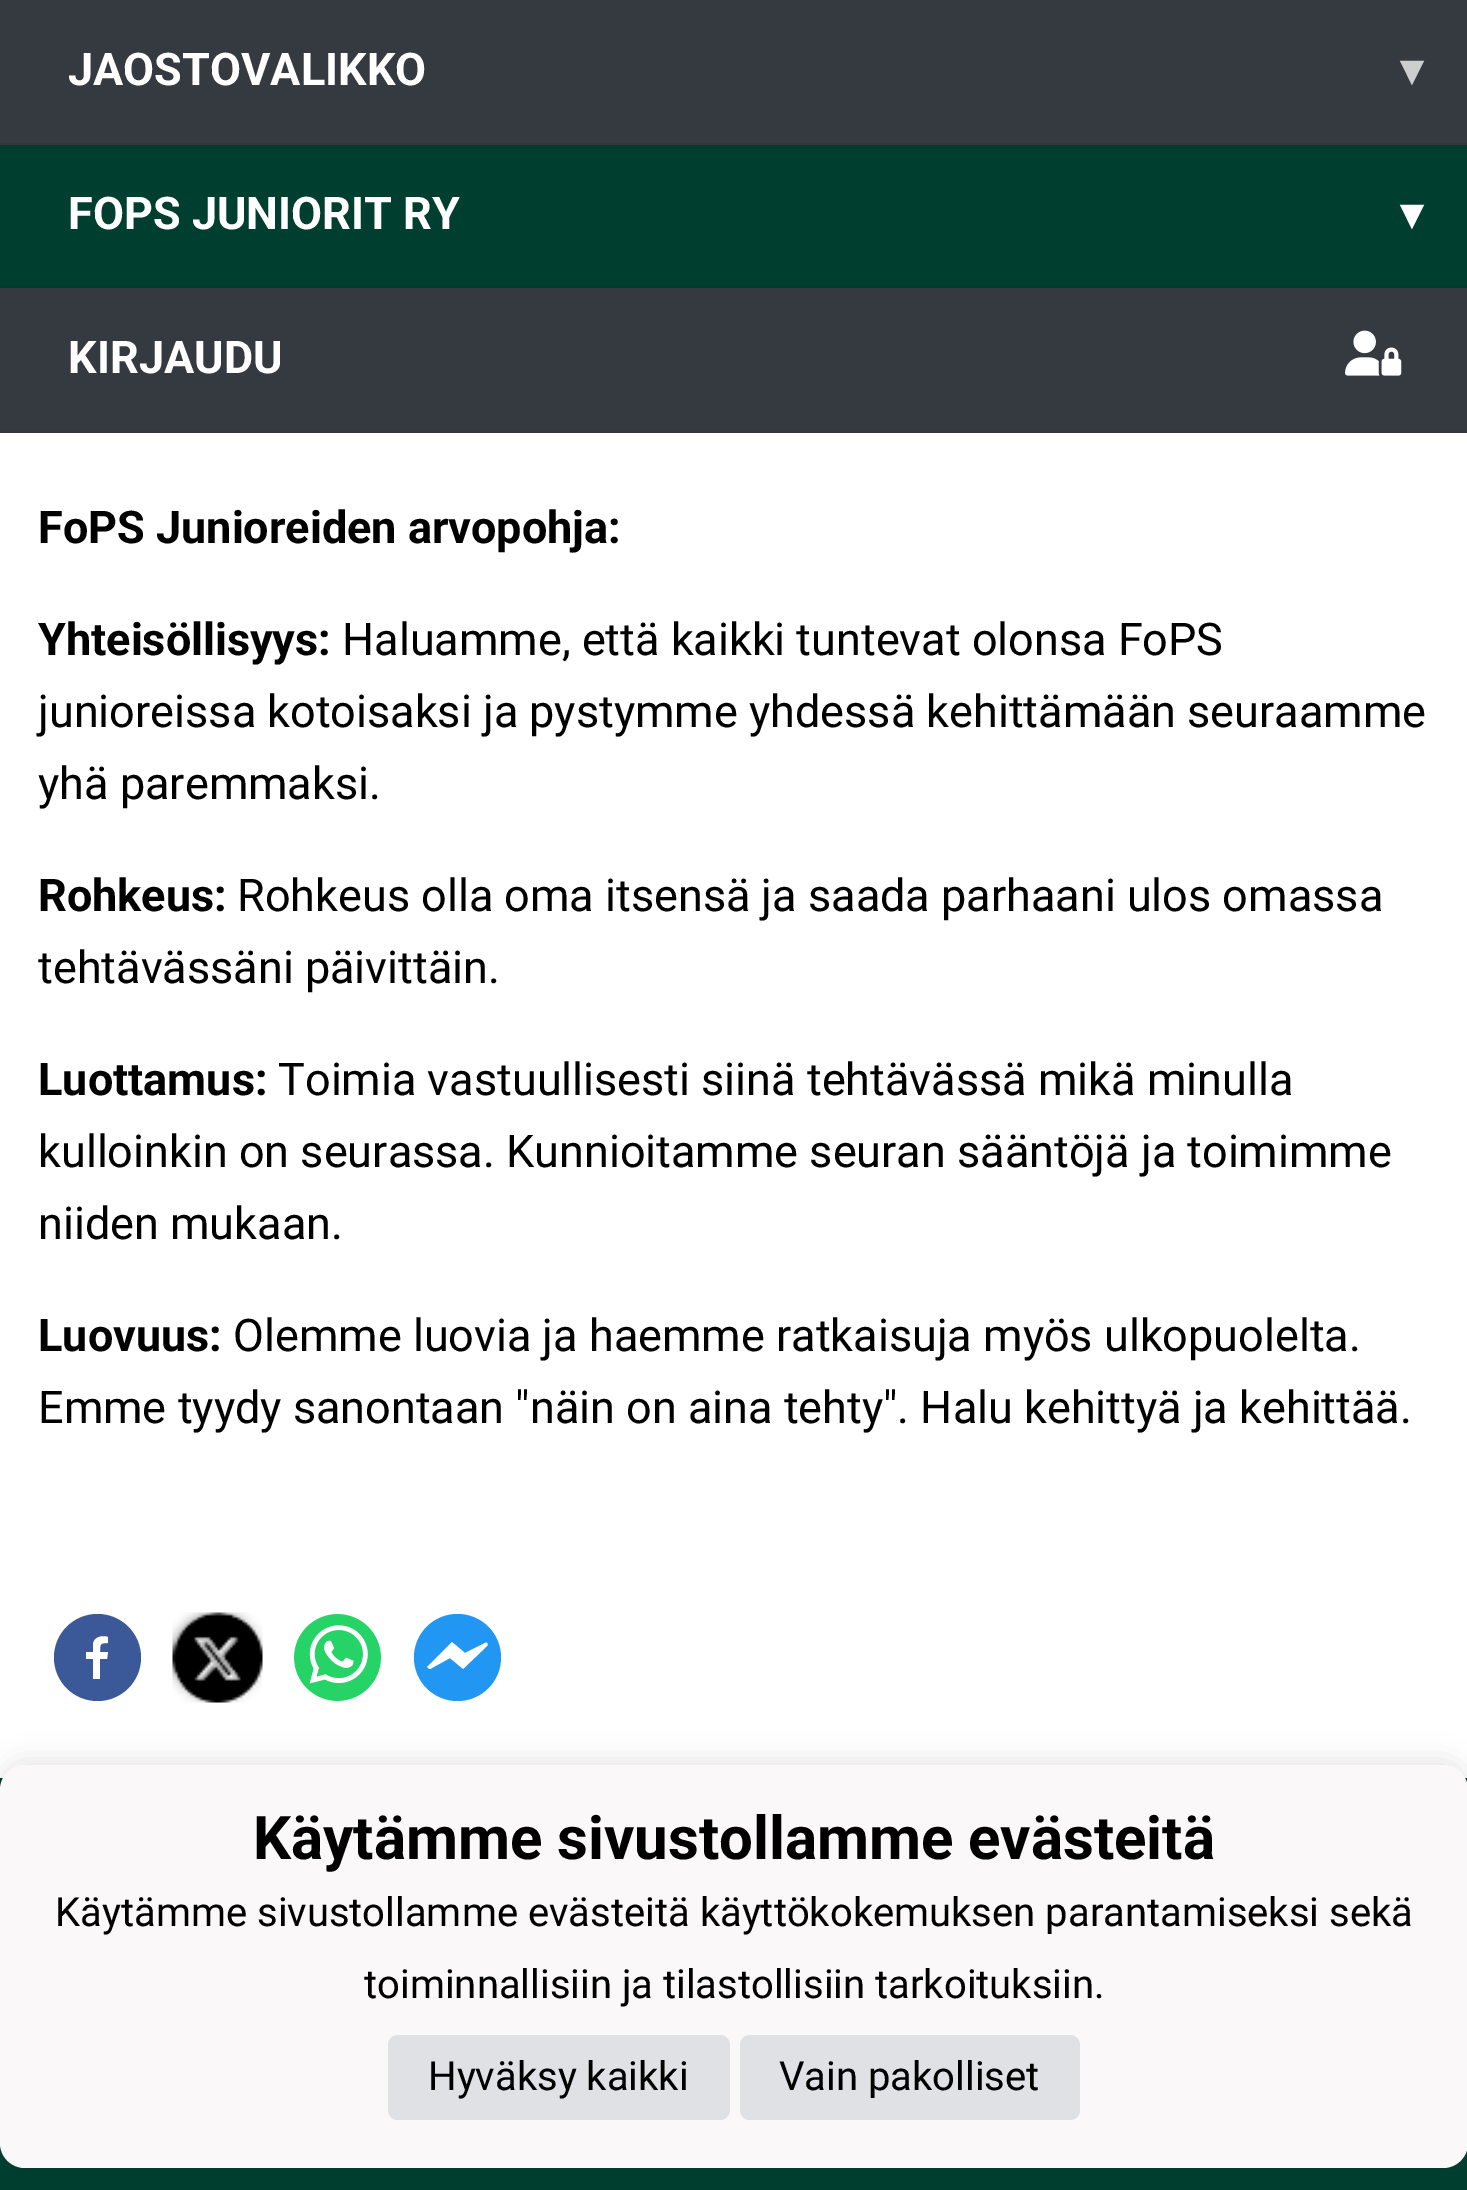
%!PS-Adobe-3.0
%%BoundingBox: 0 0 1467 2190
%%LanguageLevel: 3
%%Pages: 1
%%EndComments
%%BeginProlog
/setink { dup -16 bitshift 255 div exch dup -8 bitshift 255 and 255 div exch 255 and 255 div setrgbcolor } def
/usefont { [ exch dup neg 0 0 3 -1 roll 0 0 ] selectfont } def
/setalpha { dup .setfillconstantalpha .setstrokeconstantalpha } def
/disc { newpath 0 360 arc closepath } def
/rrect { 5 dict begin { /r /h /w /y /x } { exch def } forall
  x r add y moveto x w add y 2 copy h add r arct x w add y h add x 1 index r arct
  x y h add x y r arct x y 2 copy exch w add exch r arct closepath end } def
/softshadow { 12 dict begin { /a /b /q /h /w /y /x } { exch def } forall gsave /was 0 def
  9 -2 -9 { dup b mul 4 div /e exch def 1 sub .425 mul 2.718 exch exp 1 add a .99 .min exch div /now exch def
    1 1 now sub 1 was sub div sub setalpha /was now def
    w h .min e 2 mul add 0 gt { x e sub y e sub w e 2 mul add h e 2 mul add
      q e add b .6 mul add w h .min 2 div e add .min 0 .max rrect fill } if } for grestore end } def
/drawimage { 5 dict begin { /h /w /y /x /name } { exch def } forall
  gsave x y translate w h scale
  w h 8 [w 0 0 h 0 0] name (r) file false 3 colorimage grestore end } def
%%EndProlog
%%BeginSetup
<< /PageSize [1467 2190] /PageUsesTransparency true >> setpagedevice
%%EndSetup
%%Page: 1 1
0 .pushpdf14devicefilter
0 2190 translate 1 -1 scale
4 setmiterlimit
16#FFFFFF setink
0 0 1467 2190 rectfill
16#343A40 setink
0 0 1467 143 rectfill
16#31373D setink
0 143 1467 2 rectfill
/Roboto-Bold 45 usefont
16#FFFFFF setink
68 85 moveto (JAOSTOVALIKKO) show
/DejaVuSans-Bold 45 usefont
16#CCCECF setink
1400 85 moveto (▾) show
[
    [0 146 1467 139 16#003E2F]
    [0 145 1467 1 16#003B2D]
    [0 285 1467 3 16#003B2D]
] { aload pop setink rectfill } forall
/Roboto-Bold 45 usefont
16#FFFFFF setink
68 229 moveto (FOPS JUNIORIT RY) show
/DejaVuSans-Bold 45 usefont
1400 229 moveto (▾) show
16#343A40 setink
0 288 1467 142 rectfill
16#31373D setink
0 430 1467 3 rectfill
/Roboto-Bold 45 usefont
16#FFFFFF setink
68 373 moveto (KIRJAUDU) show
(img1.raw) 1345 330 57 46 drawimage
16#000000 setink
38 543 moveto (FoPS Junioreiden arvopohja:) show
38 655 moveto (Yhteisöllisyys:) show
/Roboto-Regular 45 usefont
[
    [(Haluamme, että kaikki tuntevat olonsa FoPS) 342 655]
    [(junioreissa kotoisaksi ja pystymme yhdessä kehittämään seuraamme) 38 727]
    [(yhä paremmaksi.) 38 799]
] { aload pop moveto show } forall
/Roboto-Bold 45 usefont
38 911 moveto (Rohkeus:) show
/Roboto-Regular 45 usefont
237 911 moveto (Rohkeus olla oma itsensä ja saada parhaani ulos omassa) show
38 983 moveto (tehtävässäni päivittäin.) show
/Roboto-Bold 45 usefont
38 1095 moveto (Luottamus:) show
/Roboto-Regular 45 usefont
[
    [(Toimia vastuullisesti siinä tehtävässä mikä minulla) 278 1095]
    [(kulloinkin on seurassa. Kunnioitamme seuran sääntöjä ja toimimme) 38 1167]
    [(niiden mukaan.) 38 1239]
] { aload pop moveto show } forall
/Roboto-Bold 45 usefont
38 1351 moveto (Luovuus:) show
/Roboto-Regular 45 usefont
233 1351 moveto (Olemme luovia ja haemme ratkaisuja myös ulkopuolelta.) show
38 1423 moveto (Emme tyydy sanontaan "näin on aina tehty". Halu kehittyä ja kehittää.) show
16#3B5998 setink
97.5 1657.5 43.5 disc fill
16#FFFFFF setink
100 1679 moveto 100 1659 lineto 107 1659 lineto 108 1652 lineto 100 1652 lineto 100 1644 100 1643 108 1643 curveto 108 1637 lineto 102 1635 94 1637 93 1644 curveto 93 1652 lineto 86 1652 lineto 86 1659 lineto 93 1659 lineto 93 1679 lineto closepath fill
(img2.raw) 172 1612 91 91 drawimage
(img3.raw) 294 1614 87 87 drawimage
16#2196F3 setink
457.5 1657.5 43.5 disc fill
16#FFFFFF setink
487 1643 moveto 487 1643 486 1642 485 1643 curveto 465 1653 lineto 453 1643 lineto 452 1642 451 1642 451 1643 curveto 428 1666 lineto 427 1666 427 1667 428 1668 curveto 429 1669 430 1669 430 1669 curveto 450 1658 lineto 462 1668 lineto 463 1669 464 1669 464 1668 curveto 487 1646 lineto 488 1645 488 1644 487 1643 curveto closepath fill
16#003E2F setink
0 1778 1467 412 rectfill
16#000000 setink
0 1760 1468 403 25 12.5 0.1 softshadow
16#FAF8F8 setink
0 1765 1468 403 25 rrect fill
/Roboto-Bold 60 usefont
16#000000 setink
253 1859 moveto (Käytämme sivustollamme evästeitä) show
/Roboto-Regular 40 usefont
55 1926 moveto (Käytämme sivustollamme evästeitä käyttökokemuksen parantamiseksi sekä) show
364 1998 moveto (toiminnallisiin ja tilastollisiin tarkoituksiin.) show
16#DFE1E5 setink
388 2035 342 85 10 rrect fill
16#000000 setink
428 2090 moveto (Hyväksy kaikki) show
16#DFE1E5 setink
740 2035 340 85 10 rrect fill
16#000000 setink
779 2090 moveto (Vain pakolliset) show
.poppdf14devicefilter showpage
%%EOF
